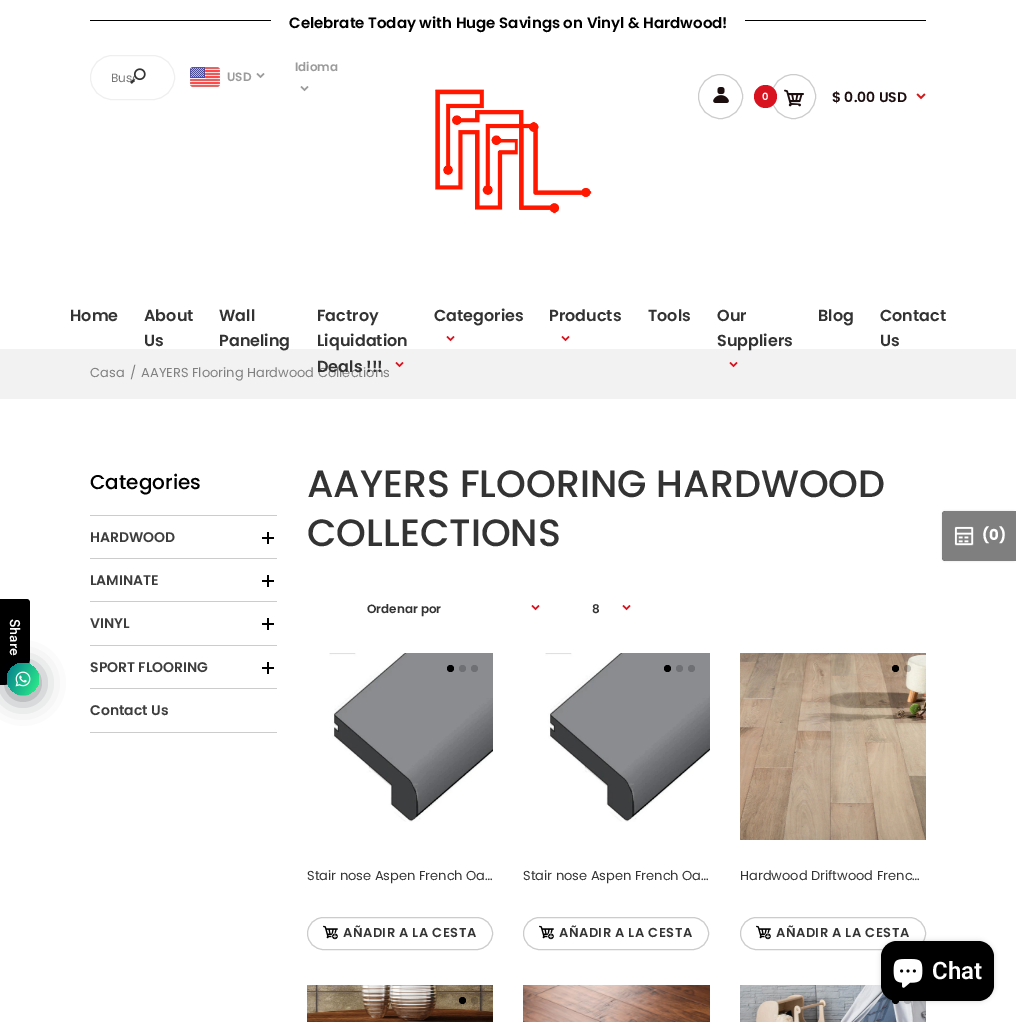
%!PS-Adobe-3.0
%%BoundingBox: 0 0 1016 1022
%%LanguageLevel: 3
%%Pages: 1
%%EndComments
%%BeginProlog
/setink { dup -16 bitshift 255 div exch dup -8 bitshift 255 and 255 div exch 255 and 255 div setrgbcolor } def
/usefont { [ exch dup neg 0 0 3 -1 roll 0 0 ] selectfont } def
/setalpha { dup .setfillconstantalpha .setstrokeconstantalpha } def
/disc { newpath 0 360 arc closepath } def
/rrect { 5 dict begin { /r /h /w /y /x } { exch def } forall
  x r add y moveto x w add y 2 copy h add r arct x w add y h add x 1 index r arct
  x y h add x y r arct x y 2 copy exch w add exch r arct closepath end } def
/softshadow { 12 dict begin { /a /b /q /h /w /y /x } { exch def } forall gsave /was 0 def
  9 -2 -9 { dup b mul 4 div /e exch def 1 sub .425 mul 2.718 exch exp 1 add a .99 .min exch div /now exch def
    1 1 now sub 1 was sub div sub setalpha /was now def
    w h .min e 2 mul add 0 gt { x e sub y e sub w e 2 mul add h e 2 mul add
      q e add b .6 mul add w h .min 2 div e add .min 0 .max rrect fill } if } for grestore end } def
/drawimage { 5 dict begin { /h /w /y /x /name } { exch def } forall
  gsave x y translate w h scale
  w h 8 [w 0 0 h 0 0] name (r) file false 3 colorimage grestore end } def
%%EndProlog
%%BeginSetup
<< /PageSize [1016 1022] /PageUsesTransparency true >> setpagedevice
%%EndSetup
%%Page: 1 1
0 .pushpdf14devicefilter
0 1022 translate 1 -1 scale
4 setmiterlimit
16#FFFFFF setink
0 0 1016 1022 rectfill
16#000000 setink
90 20 836 1 rectfill
16#FFFFFF setink
271 20 474 1 rectfill
/Poppins-SemiBold 15 usefont
16#000000 setink
289 28 moveto (Celebrate Today with Huge Savings on Vinyl & Hardwood!) show
/Poppins-SemiBold 12 usefont
16#9B9B9B setink
295 71 moveto (Idioma) show
(img1.raw) 300 86 9 6 drawimage
16#EFEFEF setink
90.5 55.5 84 44 22 rrect stroke
/Poppins-Regular 12 usefont
16#757575 setink
111 82 moveto (Bus) show
(img2.raw) 130 68 16 16 drawimage
(img3.raw) 190 67 30 20 drawimage
/Poppins-SemiBold 12 usefont
16#9B9B9B setink
227 81 moveto (USD) show
(img1.raw) 256 73 9 6 drawimage
(img4.raw) 435 89 157 125 drawimage
16#CCCCCC setink
720.5 96.5 22 disc stroke
(img5.raw) 713 87 16 16 drawimage
793.5 96.5 22 disc stroke
16#D9121F setink
765.5 96.5 11.5 disc fill
/Poppins-SemiBold 10 usefont
16#FFFFFF setink
762 100 moveto (0) show
(img6.raw) 784 89 20 18 drawimage
/Poppins-SemiBold 14 usefont
16#1C0D0E setink
832 102 moveto ($ 0.00 USD) show
(img7.raw) 916 93 10 7 drawimage
/Poppins-SemiBold 16 usefont
16#333333 setink
[
    [(Home) 70 321]
    [(About) 144 321]
    [(Us) 144 346]
    [(Wall) 219 321]
] { aload pop moveto show } forall
16#F2F2F2 setink
0 349 1016 50 rectfill
16#333333 setink
[
    [(Paneling) 219 346]
    [(Factroy) 317 321]
    [(Liquidation) 317 346]
] { aload pop moveto show } forall
/Poppins-Regular 13 usefont
16#808080 setink
141 377 moveto (AAYERS Flooring Hardwood Collections) show
/Poppins-SemiBold 16 usefont
16#333333 setink
317 372 moveto (Deals !!!) show
(img8.raw) 395 362 9 6 drawimage
434 321 moveto (Categories) show
(img9.raw) 446 336 9 6 drawimage
549 321 moveto (Products) show
(img9.raw) 561 336 9 6 drawimage
[
    [(Tools) 648 321]
    [(Our) 717 321]
    [(Suppliers) 717 346]
] { aload pop moveto show } forall
(img8.raw) 729 362 9 6 drawimage
[
    [(Blog) 818 321]
    [(Contact) 880 321]
    [(Us) 880 346]
] { aload pop moveto show } forall
/Poppins-Regular 13 usefont
16#808080 setink
90 377 moveto (Casa) show
130 377 moveto (/) show
/Poppins-Medium 20 usefont
16#000000 setink
90 489 moveto (Categories) show
16#CCCCCC setink
90 515 187 1 rectfill
/Poppins-SemiBold 14 usefont
16#3D3D3D setink
90 542 moveto (HARDWOOD) show
(img10.raw) 262 532 12 12 drawimage
16#CCCCCC setink
90 558 187 1 rectfill
16#3D3D3D setink
90 585 moveto (LAMINATE) show
(img10.raw) 262 575 12 12 drawimage
16#CCCCCC setink
90 601 187 1 rectfill
16#3D3D3D setink
90 628 moveto (VINYL) show
(img10.raw) 262 618 12 12 drawimage
16#CCCCCC setink
90 645 187 1 rectfill
16#3D3D3D setink
90 672 moveto (SPORT FLOORING) show
(img10.raw) 262 662 12 12 drawimage
16#CCCCCC setink
90 688 187 1 rectfill
90 732 187 1 rectfill
16#3D3D3D setink
90 715 moveto (Contact Us) show
/Poppins-Medium 38 usefont
16#333333 setink
307 497 moveto (AAYERS FLOORING HARDWOOD) show
307 546 moveto (COLLECTIONS) show
/Poppins-SemiBold 12 usefont
367 613 moveto (Ordenar por) show
(img9.raw) 531 605 9 6 drawimage
592 613 moveto (8) show
(img9.raw) 622 605 9 6 drawimage
(img11.raw) 329 653 164 169 drawimage
16#000000 setink
450.5 668.5 3.5 disc fill
16#6E7073 setink
462.5 668.5 3.5 disc fill
474.5 668.5 3.5 disc fill
/Poppins-Regular 13 usefont
16#333333 setink
307 880 moveto (Stair nose Aspen French Oa…) show
16#CCCCCC setink
307.5 917.5 185 32 16 rrect stroke
(img12.raw) 323 925 15 15 drawimage
/Poppins-SemiBold 13 usefont
16#333333 setink
343 937 moveto 0.5 0 (AÑADIR A LA CESTA) ashow
(img13.raw) 545 653 165 169 drawimage
16#000000 setink
667.5 668.5 3.5 disc fill
16#6E7073 setink
679.5 668.5 3.5 disc fill
691.5 668.5 3.5 disc fill
/Poppins-Regular 13 usefont
16#333333 setink
523 880 moveto (Stair nose Aspen French Oa…) show
16#CCCCCC setink
523.5 917.5 185 32 16 rrect stroke
(img12.raw) 539 925 15 15 drawimage
/Poppins-SemiBold 13 usefont
16#333333 setink
559 937 moveto 0.5 0 (AÑADIR A LA CESTA) ashow
(img14.raw) 740 653 186 187 drawimage
16#000000 setink
895.5 668.5 3.5 disc fill
0.2 setalpha
907.5 668.5 3.5 disc fill
/Poppins-Regular 13 usefont
1 setalpha
16#333333 setink
740 880 moveto (Hardwood Driftwood Frenc…) show
16#CCCCCC setink
740.5 917.5 185 32 16 rrect stroke
(img12.raw) 756 925 15 15 drawimage
/Poppins-SemiBold 13 usefont
16#333333 setink
776 937 moveto 0.5 0 (AÑADIR A LA CESTA) ashow
(img15.raw) 307 985 186 37 drawimage
16#000000 setink
462.5 1000.5 3.5 disc fill
0.2 setalpha
474.5 1000.5 3.5 disc fill
1 setalpha
(img16.raw) 523 985 187 37 drawimage
(img17.raw) 740 985 186 37 drawimage
895.5 1000.5 3.5 disc fill
0.2 setalpha
907.5 1000.5 3.5 disc fill
gsave
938 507 moveto 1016 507 lineto 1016 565 lineto 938 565 lineto closepath 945 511 moveto 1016 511 lineto 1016 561 lineto 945 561 lineto 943.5 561 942 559.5 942 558 curveto 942 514 lineto 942 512.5 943.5 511 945 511 curveto closepath eoclip newpath
1 setalpha
16#DDDDDD setink
942 511 74 50 3 1 1 softshadow
grestore
0.5 setalpha
945 511 moveto 1016 511 lineto 1016 561 lineto 945 561 lineto 943.5 561 942 559.5 942 558 curveto 942 514 lineto 942 512.5 943.5 511 945 511 curveto closepath fill
1 setalpha
(img18.raw) 954 526 20 20 drawimage
/Poppins-Bold 15 usefont
16#FFFFFF setink
982 540 moveto (\(0\)) show
16#000000 setink
0 685 moveto 0 599 lineto 26 599 lineto 28 599 30 600 30 603 curveto 30 657 lineto 30 673 17 685 2 685 curveto closepath fill
/Circular-Medium 14 usefont
16#FFFFFF setink
gsave 10 619 translate 90 rotate 0 0 moveto (Share) show grestore
16#020610 setink
7 667 32 32 16 12 0.5 softshadow
gsave 23 679 16 disc clip newpath
<< /ShadingType 2 /ColorSpace /DeviceRGB /Coords [3.7 670 42 688] /Extend [true true] /Function << /FunctionType 2 /Domain [0 1] /C0 [0.016 0.486 0.553] /C1 [0.184 0.949 0.537] /N 1 >> >> shfill grestore
(img19.raw) 15 671 16 16 drawimage
16#000000 setink
881 941 113 60 16 2.5 0.15 softshadow
881 941 113 60 16 rrect fill
(img20.raw) 893 959 30 29 drawimage
/Roboto-SemiBold 24 usefont
16#FFFFFF setink
932 979 moveto (Chat) show
.poppdf14devicefilter showpage
%%EOF
